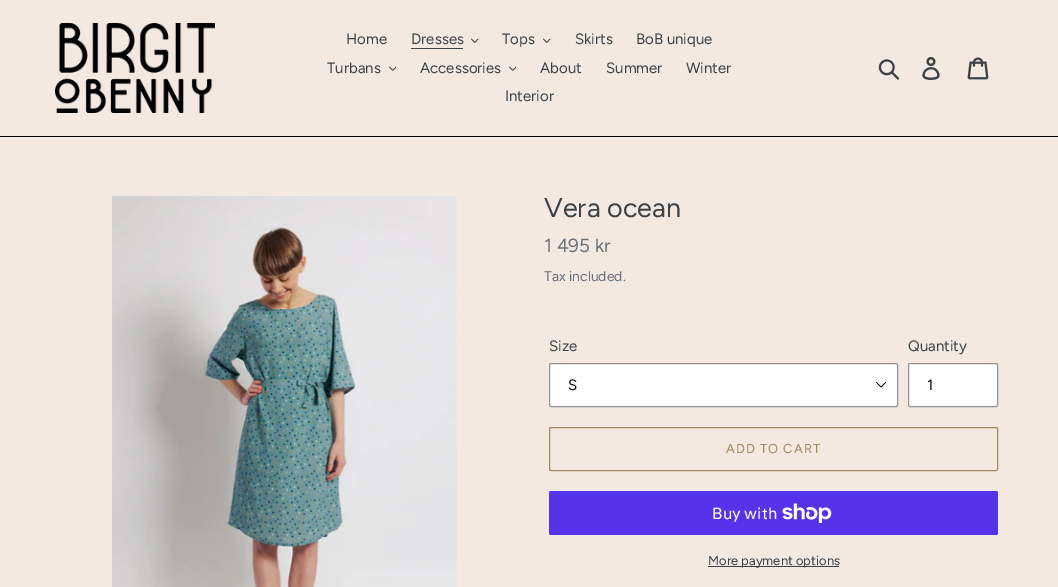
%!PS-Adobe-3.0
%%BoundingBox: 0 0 1058 587
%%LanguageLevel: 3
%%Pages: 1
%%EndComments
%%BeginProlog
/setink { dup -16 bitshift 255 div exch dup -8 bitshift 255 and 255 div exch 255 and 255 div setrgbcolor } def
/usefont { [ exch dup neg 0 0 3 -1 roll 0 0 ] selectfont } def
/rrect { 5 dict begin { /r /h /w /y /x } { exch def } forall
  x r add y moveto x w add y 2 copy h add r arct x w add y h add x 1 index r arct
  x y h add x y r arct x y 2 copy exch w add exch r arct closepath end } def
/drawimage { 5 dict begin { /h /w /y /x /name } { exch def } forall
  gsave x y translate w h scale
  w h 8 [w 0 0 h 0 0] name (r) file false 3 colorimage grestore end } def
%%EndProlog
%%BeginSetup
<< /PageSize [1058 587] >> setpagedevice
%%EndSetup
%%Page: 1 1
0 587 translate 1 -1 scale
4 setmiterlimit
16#F3E9E0 setink
0 0 1058 587 rectfill
16#000000 setink
0 136 1058 1 rectfill
(img1.raw) 55 23 160 90 drawimage
/Figtree-Regular 15 usefont
16#3D4246 setink
346 44 moveto (Home) show
411 44 moveto (Dresses) show
411 48 52 1 rectfill
(img2.raw) 471 38 8 5 drawimage
502 44 moveto (Tops) show
(img2.raw) 543 38 8 5 drawimage
[
    [(Skirts) 575 44]
    [(BoB unique) 636 44]
    [(Turbans) 327 73]
] { aload pop moveto show } forall
(img3.raw) 389 66 7 5 drawimage
420 73 moveto (Accessories) show
(img3.raw) 509 66 7 5 drawimage
[
    [(About) 540 73]
    [(Summer) 606 73]
    [(Winter) 686 73]
    [(Interior) 505 101]
] { aload pop moveto show } forall
(img4.raw) 878 59 22 21 drawimage
(img5.raw) 922 57 18 23 drawimage
(img6.raw) 967 57 22 23 drawimage
(img7.raw) 112 196 345 391 drawimage
/Figtree-Regular 27 usefont
544 217 moveto (Vera ocean) show
/Figtree-Regular 19 usefont
16#69727B setink
544 252 moveto (1 495 kr) show
/Figtree-Regular 14 usefont
544 281 moveto (Tax included.) show
/Figtree-Regular 15 usefont
16#3D4246 setink
549 351 moveto (Size) show
16#FFFFFF setink
549 363 349 44 2 rrect fill
(img8.raw) 875 381 12 7 drawimage
16#949494 setink
549.5 363.5 348 43 1.5 rrect stroke
16#000000 setink
568 390 moveto (S) show
16#3D4246 setink
908 351 moveto (Quantity) show
16#FFFFFF setink
908.5 363.5 89 43 1.5 rrect gsave fill grestore
16#949494 setink
stroke
16#000000 setink
927 390 moveto (1) show
16#A28A62 setink
549.5 427.5 448 43 1.5 rrect stroke
/Figtree-Regular 13 usefont
726 453 moveto 1 0 (ADD TO CART) ashow
16#5433EB setink
549 491 449 44 2 rrect fill
/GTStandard-Regular 16 usefont
16#FFFFFF setink
712 519 moveto (Buy with) show
(img9.raw) 782 503 50 20 drawimage
16#3D4246 setink
708 566 131 1 rectfill
/Figtree-Regular 13 usefont
708 565 moveto (More payment options) show
showpage
%%EOF
